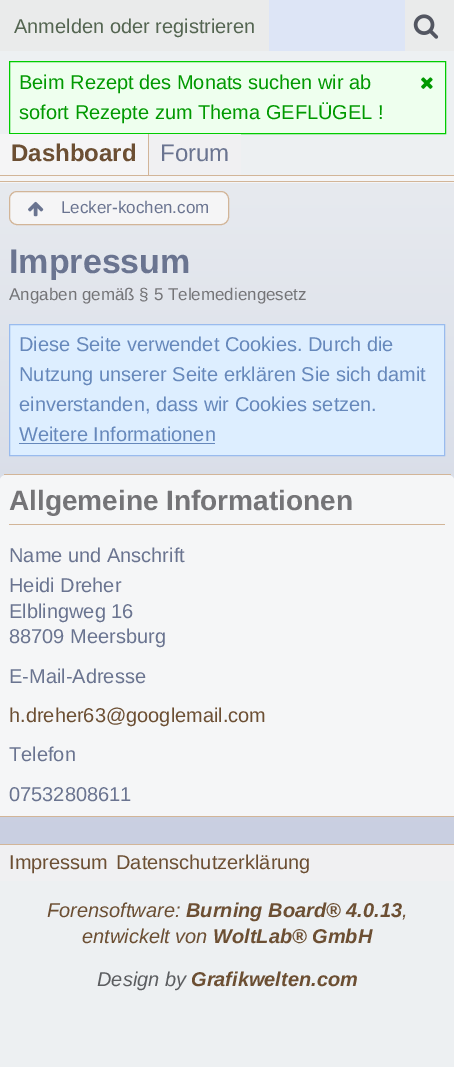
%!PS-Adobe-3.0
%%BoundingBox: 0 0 454 1067
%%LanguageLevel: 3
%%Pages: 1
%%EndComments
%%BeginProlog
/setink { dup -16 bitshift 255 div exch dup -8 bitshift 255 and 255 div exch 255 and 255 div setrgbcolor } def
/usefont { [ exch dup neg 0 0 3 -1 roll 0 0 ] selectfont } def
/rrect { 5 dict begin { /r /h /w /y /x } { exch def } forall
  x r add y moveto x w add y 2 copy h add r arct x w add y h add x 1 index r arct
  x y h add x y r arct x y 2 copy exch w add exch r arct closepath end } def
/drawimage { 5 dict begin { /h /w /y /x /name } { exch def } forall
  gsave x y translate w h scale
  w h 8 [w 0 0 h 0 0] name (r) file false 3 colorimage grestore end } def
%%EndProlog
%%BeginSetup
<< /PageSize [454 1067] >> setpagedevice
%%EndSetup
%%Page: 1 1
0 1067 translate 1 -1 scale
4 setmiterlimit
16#EDF0F2 setink
0 0 454 1067 rectfill
16#DDE5F6 setink
269 0 136 51 rectfill
16#EAEBEB setink
0 0 269 51 rectfill
/LiberationSans-Regular 20 usefont
16#546551 setink
14 33 moveto (Anmelden oder registrieren) show
16#EAEBEB setink
405 0 49 51 rectfill
(img1.raw) 413 14 26 25 drawimage
16#EEFFEE setink
9.5 61.5 moveto 445.5 61.5 lineto 445.5 133.5 lineto 9.5 133.5 lineto closepath gsave fill grestore
16#00CC00 setink
stroke
16#009900 setink
19 89 moveto (Beim Rezept des Monats suchen wir ab) show
19 119 moveto (sofort Rezepte zum Thema GEFLÜGEL !) show
(img2.raw) 421 77 12 12 drawimage
[
    [149 134 92 41 16#F0F0F2]
    [0 134 148 41 16#F5F5F6]
    [148 134 1 42 16#D2B598]
] { aload pop setink rectfill } forall
/LiberationSans-Bold 24 usefont
16#6C4F33 setink
11 161 moveto (Dashboard) show
/LiberationSans-Regular 24 usefont
16#6A7490 setink
160 161 moveto (Forum) show
[
    [0 176 454 7 16#F5F5F6]
    [0 175 454 1 16#D2B598]
    [0 181 454 1 16#D2B598]
] { aload pop setink rectfill } forall
gsave 0 183 moveto 454 183 lineto 454 844 lineto 0 844 lineto closepath clip newpath
<< /ShadingType 2 /ColorSpace /DeviceRGB /Coords [227 183 227 844] /Extend [true true] /Function << /FunctionType 2 /Domain [0 1] /C0 [0.906 0.918 0.937] /C1 [0.788 0.812 0.882] /N 1 >> >> shfill grestore
16#F5F5F6 setink
9.5 191.5 219 33 7.5 rrect gsave fill grestore
16#D2B598 setink
stroke
(img3.raw) 28 201 16 16 drawimage
/LiberationSans-Regular 17 usefont
16#6A7490 setink
61 213 moveto (Lecker-kochen.com) show
/LiberationSans-Bold 34 usefont
9 273 moveto (Impressum) show
/LiberationSans-Regular 17 usefont
16#747477 setink
9 300 moveto (Angaben gemäß § 5 Telemediengesetz) show
16#DDEEFF setink
9.5 324.5 moveto 444.5 324.5 lineto 444.5 455.5 lineto 9.5 455.5 lineto closepath gsave fill grestore
16#99BBEE setink
stroke
/LiberationSans-Regular 20 usefont
16#6688BB setink
[
    [(Diese Seite verwendet Cookies. Durch die) 19 351]
    [(Nutzung unserer Seite erklären Sie sich damit) 19 381]
    [(einverstanden, dass wir Cookies setzen.) 19 411]
    [(Weitere Informationen) 19 441]
] { aload pop moveto show } forall
19 443 196 1 rectfill
16#F5F6F7 setink
6 475 moveto 448 475 lineto 451 475 454 477 454 480 curveto 454 816 lineto 0 816 lineto 0 480 lineto 0 477 3 475 6 475 curveto closepath fill
[
    [4 474 447 1 16#D2B598]
    [0 816 454 1 16#D2B598]
    [9 524 436 1 16#D2B598]
] { aload pop setink rectfill } forall
/LiberationSans-Bold 28 usefont
16#747477 setink
9 510 moveto (Allgemeine Informationen) show
/LiberationSans-Regular 20 usefont
16#6A7490 setink
[
    [(Name und Anschrift) 9 562]
    [(Heidi Dreher) 9 592]
    [(Elblingweg 16) 9 618]
    [(88709 Meersburg) 9 643]
    [(E-Mail-Adresse) 9 683]
] { aload pop moveto show } forall
16#6C4F33 setink
9 722 moveto (h.dreher63@googlemail.com) show
16#6A7490 setink
9 761 moveto (Telefon) show
9 801 moveto (07532808611) show
16#F0F0F2 setink
0 845 454 36 rectfill
16#D2B598 setink
0 844 454 1 rectfill
16#6C4F33 setink
9 869 moveto (Impressum) show
116 869 moveto (Datenschutzerklärung) show
/LiberationSans-Italic 20 usefont
47 917 moveto (Forensoftware:) show
/LiberationSans-BoldItalic 20 usefont
186 917 moveto (Burning Board® 4.0.13) show
/LiberationSans-Italic 20 usefont
402 917 moveto (,) show
82 943 moveto (entwickelt von) show
/LiberationSans-BoldItalic 20 usefont
213 943 moveto (WoltLab® GmbH) show
/LiberationSans-Italic 20 usefont
16#5C5E61 setink
97 986 moveto (Design by) show
/LiberationSans-BoldItalic 20 usefont
16#6C4F33 setink
191 986 moveto (Grafikwelten.com) show
showpage
%%EOF
